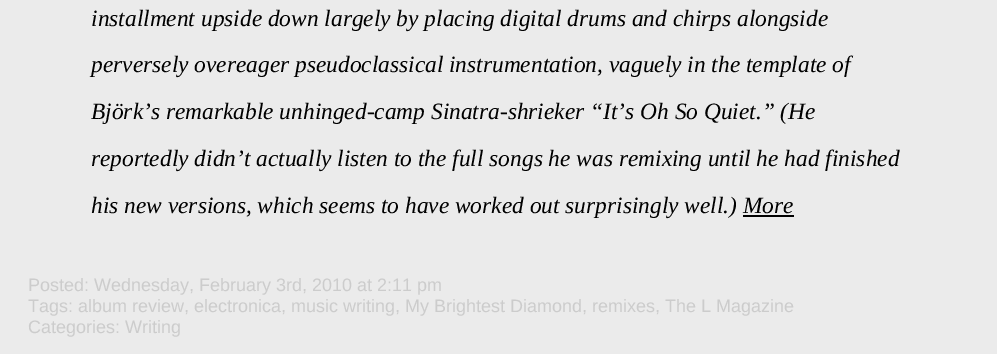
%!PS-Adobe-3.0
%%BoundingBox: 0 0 997 354
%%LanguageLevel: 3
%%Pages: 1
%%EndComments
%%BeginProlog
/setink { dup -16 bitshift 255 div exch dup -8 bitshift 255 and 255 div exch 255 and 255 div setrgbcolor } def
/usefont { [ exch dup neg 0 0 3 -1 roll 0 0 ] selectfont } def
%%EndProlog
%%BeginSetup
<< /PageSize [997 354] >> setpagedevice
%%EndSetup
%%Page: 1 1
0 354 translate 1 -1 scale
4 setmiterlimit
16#EBEBEB setink
0 0 997 354 rectfill
/LiberationSerif-Italic 23.4 usefont
16#000000 setink
[
    [(installment upside down largely by placing digital drums and chirps alongside) 91 26]
    [(perversely overeager pseudoclassical instrumentation, vaguely in the template of) 91 72]
    [(Björk’s remarkable unhinged-camp Sinatra-shrieker “It’s Oh So Quiet.” \(He) 91 119]
    [(reportedly didn’t actually listen to the full songs he was remixing until he had finished) 91 166]
    [(his new versions, which seems to have worked out surprisingly well.\) More) 91 213]
] { aload pop moveto show } forall
743 215 51 2 rectfill
/LiberationSans-Regular 18 usefont
16#CCCCCC setink
[
    [(Posted: Wednesday, February 3rd, 2010 at 2:11 pm) 28 291]
    [(Tags: album review, electronica, music writing, My Brightest Diamond, remixes, The L Magazine) 28 312]
    [(Categories: Writing) 28 333]
] { aload pop moveto show } forall
showpage
%%EOF
